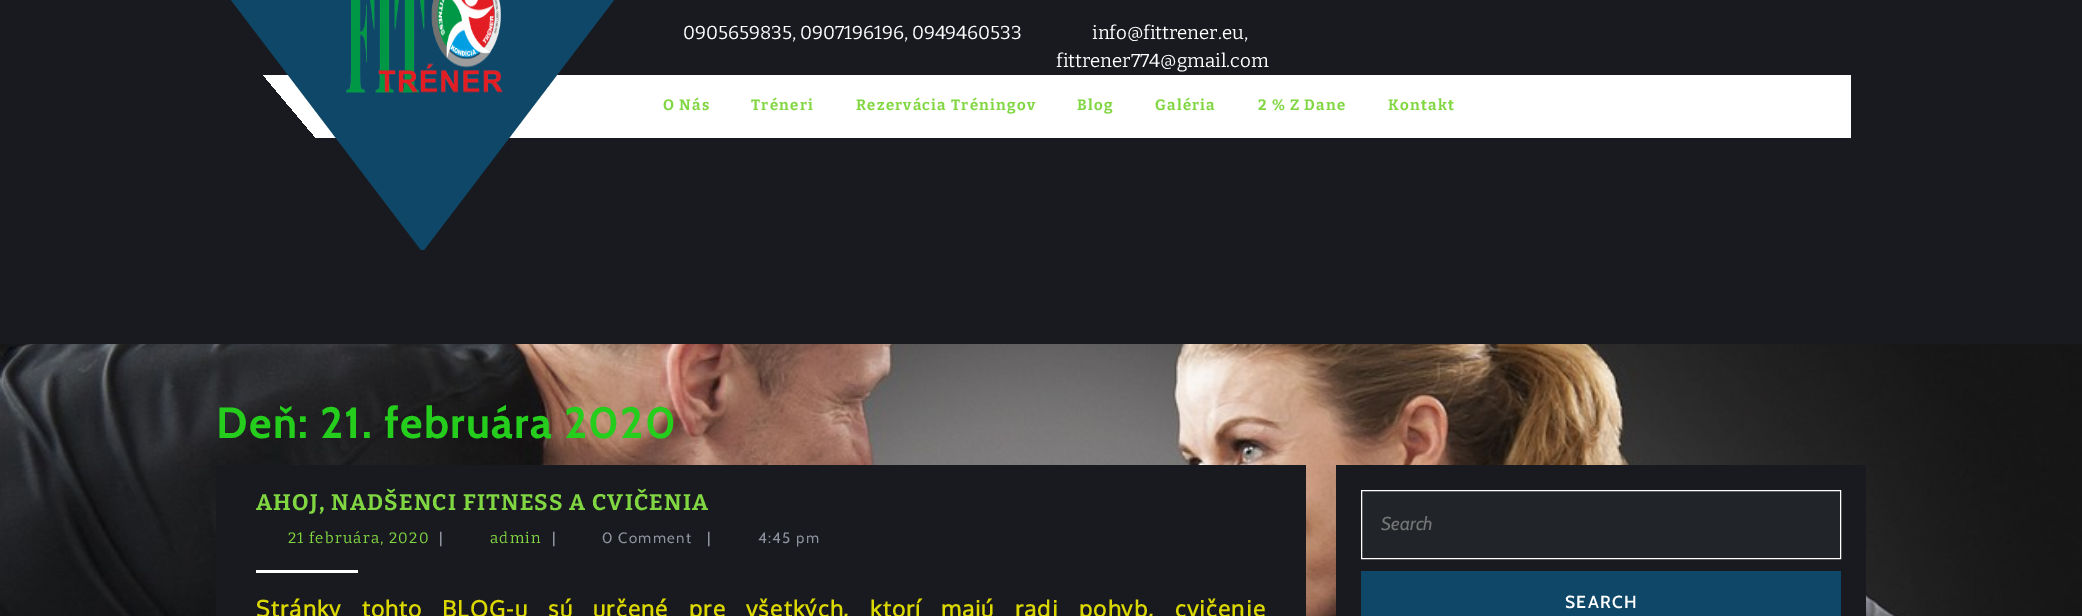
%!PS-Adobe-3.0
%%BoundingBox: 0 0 2082 616
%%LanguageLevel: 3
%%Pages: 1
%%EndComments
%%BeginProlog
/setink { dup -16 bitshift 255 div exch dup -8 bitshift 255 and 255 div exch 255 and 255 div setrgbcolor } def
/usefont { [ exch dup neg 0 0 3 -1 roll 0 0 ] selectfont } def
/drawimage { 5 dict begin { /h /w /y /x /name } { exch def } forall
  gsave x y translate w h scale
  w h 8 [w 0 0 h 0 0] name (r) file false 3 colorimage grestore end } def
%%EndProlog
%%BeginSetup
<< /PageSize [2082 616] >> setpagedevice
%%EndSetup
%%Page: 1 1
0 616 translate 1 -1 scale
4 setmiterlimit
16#FFFFFF setink
0 0 2082 616 rectfill
(img1.raw) 0 344 2082 272 drawimage
16#191A1F setink
0 0 2082 344 rectfill
gsave 263 75 moveto 1851 75 lineto 1851 138 lineto 263 138 lineto closepath clip newpath
<< /ShadingType 2 /ColorSpace /DeviceRGB /Coords [551 518 1532 -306] /Extend [true true] /Function << /FunctionType 3 /Domain [0 1] /Functions [<< /FunctionType 2 /Domain [0 1] /C0 [0.098 0.102 0.122] /C1 [0.098 0.102 0.122] /N 1 >> << /FunctionType 2 /Domain [0 1] /C0 [1 1 1] /C1 [1 1 1] /N 1 >>] /Bounds [0.05] /Encode [0 1 0 1] >> >> shfill grestore
16#0E4768 setink
231 0 moveto 614 0 lineto 424 250 lineto 421 250 lineto closepath fill
(img2.raw) 346 0 157 93 drawimage
/Bitter-Regular 18.75 usefont
16#FFFFFF setink
[
    [(0905659835, 0907196196, 0949460533) 683 39]
    [(info@fittrener.eu,) 1092 39]
    [(fittrener774@gmail.com) 1056 67]
] { aload pop moveto show } forall
/Bitter-Bold 15 usefont
16#81D742 setink
663 110 moveto 1.25 0 (O Nás) ashow
751 110 moveto 1.25 0 (Tréneri) ashow
856 110 moveto 1.25 0 (Rezervácia Tréningov) ashow
1077 110 moveto 1.25 0 (Blog) ashow
1155 110 moveto 1.25 0 (Galéria) ashow
1258 110 moveto 1.25 0 (2 % Z Dane) ashow
1388 110 moveto 1.25 0 (Kontakt) ashow
/Cabin-Bold 43.75 usefont
16#25CE1C setink
216 438 moveto 1.25 0 (Deň: 21. februára 2020) ashow
16#191A1F setink
216 465 1090 151 rectfill
/Bitter-Bold 22.5 usefont
16#81D742 setink
256 510 moveto 1.25 0 (AHOJ, NADŠENCI FITNESS A CVIČENIA) ashow
/Bitter-Regular 15 usefont
288 543 moveto 1.25 0 (21 februára, 2020) ashow
/Cabin-Regular 15 usefont
16#8D939F setink
439 543 moveto 1.25 0 (|) ashow
/Bitter-Regular 15 usefont
16#81D742 setink
490 543 moveto 1.25 0 (admin) ashow
/Cabin-Regular 15 usefont
16#8D939F setink
552 543 moveto 1.25 0 (|) ashow
602 543 moveto 1.25 0 (0 Comment) ashow
707 543 moveto 1.25 0 (|) ashow
758 543 moveto 1.25 0 (4:45 pm) ashow
16#FFFFFF setink
256 570 102 3 rectfill
/Oxygen-Bold 22.5 usefont
16#DBD700 setink
256 617 moveto 13 0 32 1.25 0 (Stránky tohto BLOG-u sú určené pre všetkých, ktorí majú radi pohyb, cvičenie) awidthshow
16#191A1F setink
1336 465 530 151 rectfill
16#212529 setink
1361.5 490.5 moveto 1840.5 490.5 lineto 1840.5 558.5 lineto 1361.5 558.5 lineto closepath gsave fill grestore
16#FFFFFF setink
stroke
/Cabin-Italic 18.75 usefont
16#757575 setink
1381 530 moveto (Search) show
16#0E4768 setink
1361 571 480 45 rectfill
/Cabin-SemiBold 17.5 usefont
16#FFFFFF setink
1565 608 moveto 1.25 0 (SEARCH) ashow
showpage
%%EOF
